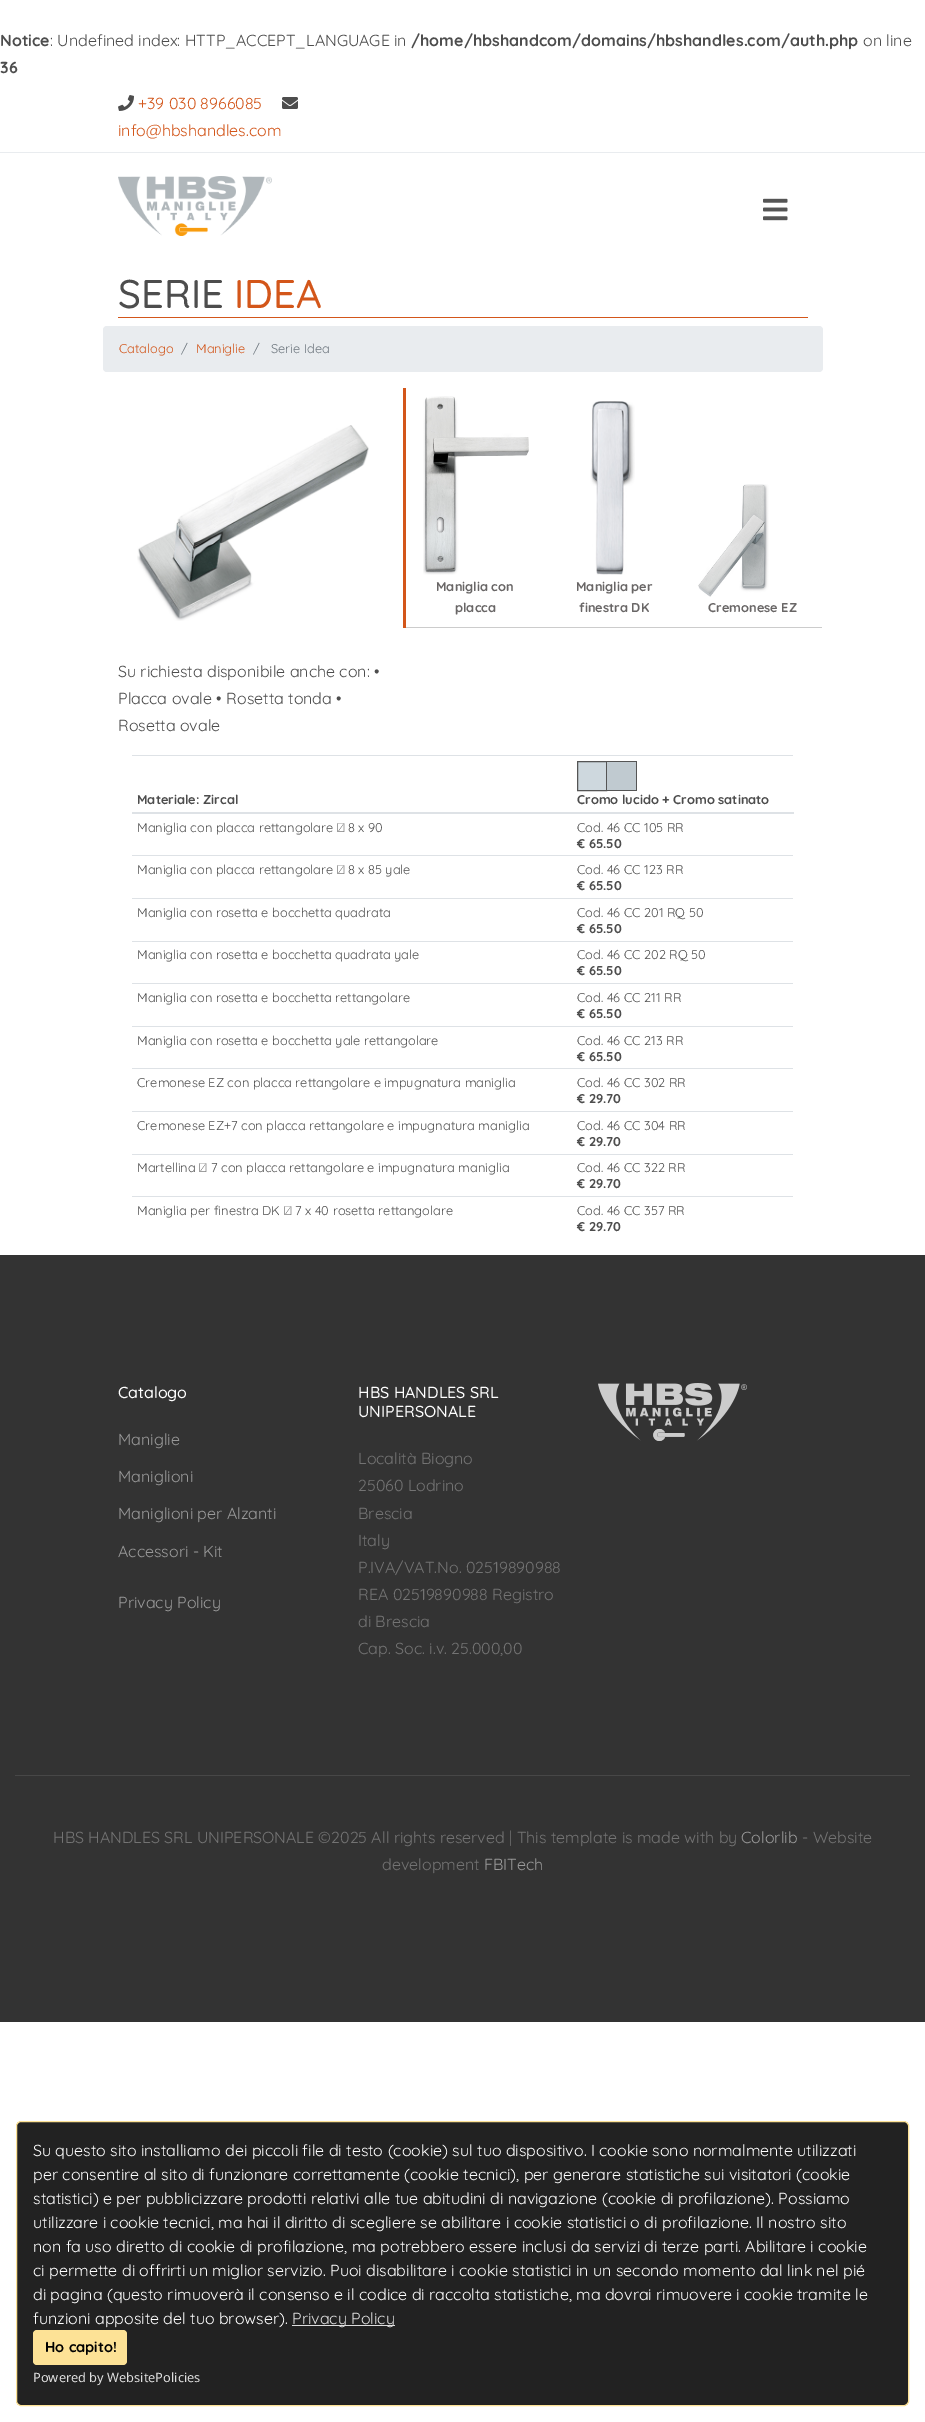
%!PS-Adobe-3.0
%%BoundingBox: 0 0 925 2422
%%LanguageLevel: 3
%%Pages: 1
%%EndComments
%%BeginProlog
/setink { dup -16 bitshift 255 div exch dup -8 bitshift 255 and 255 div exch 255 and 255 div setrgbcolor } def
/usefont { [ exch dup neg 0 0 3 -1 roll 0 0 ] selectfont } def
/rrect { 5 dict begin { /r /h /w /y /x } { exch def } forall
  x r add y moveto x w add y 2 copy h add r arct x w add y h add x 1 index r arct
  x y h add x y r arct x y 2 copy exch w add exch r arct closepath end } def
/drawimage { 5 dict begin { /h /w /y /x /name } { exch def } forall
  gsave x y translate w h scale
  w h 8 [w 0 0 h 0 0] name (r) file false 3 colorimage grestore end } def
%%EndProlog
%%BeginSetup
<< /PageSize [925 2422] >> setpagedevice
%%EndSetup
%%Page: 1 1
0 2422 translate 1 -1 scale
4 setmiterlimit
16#FFFFFF setink
0 0 925 2422 rectfill
/Quicksand-Bold 16 usefont
16#4D4D4D setink
0 46 moveto (Notice) show
/Quicksand-Regular 16 usefont
50 46 moveto (: Undefined index: HTTP_ACCEPT_LANGUAGE in) show
/Quicksand-Bold 16 usefont
411 46 moveto (/home/hbshandcom/domains/hbshandles.com/auth.php) show
/Quicksand-Regular 16 usefont
863 46 moveto (on line) show
/Quicksand-Bold 16 usefont
0 73 moveto (36) show
16#E9ECEF setink
0 152 925 1 rectfill
(img1.raw) 118 95 16 16 drawimage
/Quicksand-Regular 16 usefont
16#D3561A setink
138 109 moveto (+39 030 8966085) show
(img2.raw) 282 97 16 12 drawimage
118 136 moveto (info@hbshandles.com) show
(img3.raw) 118 176 154 60 drawimage
(img4.raw) 763 198 25 23 drawimage
118 317 690 1 rectfill
/Quicksand-Medium 40 usefont
16#4D4D4D setink
118 308 moveto (SERIE) show
16#D3561A setink
234 308 moveto (IDEA) show
16#E9ECEF setink
103 326 720 46 4 rrect fill
/Quicksand-Regular 12.8 usefont
16#D3561A setink
119 353 moveto (Catalogo) show
16#6C757D setink
181 353 moveto (/) show
16#D3561A setink
196 353 moveto (Maniglie) show
16#6C757D setink
253 353 moveto (/) show
271 353 moveto (Serie Idea) show
16#D3561A setink
403 388 3 240 rectfill
16#CCCCCC setink
406 627 416 1 rectfill
(img5.raw) 423 396 106 179 drawimage
/Quicksand-Bold 12.8 usefont
16#696666 setink
436 591 moveto (Maniglia con) show
455 612 moveto (placca) show
(img6.raw) 590 401 45 174 drawimage
576 591 moveto (Maniglia per) show
579 612 moveto (finestra DK) show
(img7.raw) 698 484 71 113 drawimage
708 612 moveto (Cremonese EZ) show
(img8.raw) 137 425 232 196 drawimage
/Quicksand-Regular 16 usefont
16#4D4D4D setink
[
    [(Su richiesta disponibile anche con: •) 118 677]
    [(Placca ovale • Rosetta tonda •) 118 704]
    [(Rosetta ovale) 118 731]
] { aload pop moveto show } forall
/Quicksand-Bold 12.8 usefont
137 804 moveto (Materiale: Zircal) show
16#DEE2E6 setink
132 755 661 1 rectfill
132 812 662 2 rectfill
16#CED8DE setink
577.5 761.5 moveto 606.5 761.5 lineto 606.5 790.5 lineto 577.5 790.5 lineto closepath gsave fill grestore
16#555555 setink
stroke
[
    [607 762 29 28 16#C0CAD0]
    [607 761 30 1 16#555555]
    [636 761 1 30 16#555555]
    [607 790 30 1 16#555555]
] { aload pop setink rectfill } forall
16#4D4D4D setink
577 804 moveto (Cromo lucido + Cromo satinato) show
/Quicksand-Regular 12.8 usefont
137 832 moveto (Maniglia con placca rettangolare) show
/FreeSerif-Regular 12.8 usefont
337 832 moveto (⍁) show
/Quicksand-Regular 12.8 usefont
348 832 moveto (8 x 90) show
577 832 moveto (Cod. 46 CC 105 RR) show
/Quicksand-Bold 12.8 usefont
577 848 moveto (€ 65.50) show
/Quicksand-Regular 12.8 usefont
137 874 moveto (Maniglia con placca rettangolare) show
/FreeSerif-Regular 12.8 usefont
337 874 moveto (⍁) show
/Quicksand-Regular 12.8 usefont
348 874 moveto (8 x 85 yale) show
16#DEE2E6 setink
132 855 661 1 rectfill
16#4D4D4D setink
577 874 moveto (Cod. 46 CC 123 RR) show
/Quicksand-Bold 12.8 usefont
577 890 moveto (€ 65.50) show
/Quicksand-Regular 12.8 usefont
137 917 moveto (Maniglia con rosetta e bocchetta quadrata) show
16#DEE2E6 setink
132 898 661 1 rectfill
16#4D4D4D setink
577 917 moveto (Cod. 46 CC 201 RQ 50) show
/Quicksand-Bold 12.8 usefont
577 933 moveto (€ 65.50) show
/Quicksand-Regular 12.8 usefont
137 959 moveto (Maniglia con rosetta e bocchetta quadrata yale) show
16#DEE2E6 setink
132 941 661 1 rectfill
16#4D4D4D setink
577 959 moveto (Cod. 46 CC 202 RQ 50) show
/Quicksand-Bold 12.8 usefont
577 975 moveto (€ 65.50) show
/Quicksand-Regular 12.8 usefont
137 1002 moveto (Maniglia con rosetta e bocchetta rettangolare) show
16#DEE2E6 setink
132 983 661 1 rectfill
16#4D4D4D setink
577 1002 moveto (Cod. 46 CC 211 RR) show
/Quicksand-Bold 12.8 usefont
577 1018 moveto (€ 65.50) show
/Quicksand-Regular 12.8 usefont
137 1045 moveto (Maniglia con rosetta e bocchetta yale rettangolare) show
16#DEE2E6 setink
132 1026 661 1 rectfill
16#4D4D4D setink
577 1045 moveto (Cod. 46 CC 213 RR) show
/Quicksand-Bold 12.8 usefont
577 1061 moveto (€ 65.50) show
/Quicksand-Regular 12.8 usefont
137 1087 moveto (Cremonese EZ con placca rettangolare e impugnatura maniglia) show
16#DEE2E6 setink
132 1068 661 1 rectfill
16#4D4D4D setink
577 1087 moveto (Cod. 46 CC 302 RR) show
/Quicksand-Bold 12.8 usefont
577 1103 moveto (€ 29.70) show
/Quicksand-Regular 12.8 usefont
137 1130 moveto (Cremonese EZ+7 con placca rettangolare e impugnatura maniglia) show
16#DEE2E6 setink
132 1111 661 1 rectfill
16#4D4D4D setink
577 1130 moveto (Cod. 46 CC 304 RR) show
/Quicksand-Bold 12.8 usefont
577 1146 moveto (€ 29.70) show
/Quicksand-Regular 12.8 usefont
137 1172 moveto (Martellina) show
/FreeSerif-Regular 12.8 usefont
199 1172 moveto (⍁) show
/Quicksand-Regular 12.8 usefont
211 1172 moveto (7 con placca rettangolare e impugnatura maniglia) show
16#DEE2E6 setink
132 1154 661 1 rectfill
16#4D4D4D setink
577 1172 moveto (Cod. 46 CC 322 RR) show
/Quicksand-Bold 12.8 usefont
577 1188 moveto (€ 29.70) show
/Quicksand-Regular 12.8 usefont
137 1215 moveto (Maniglia per finestra DK) show
/FreeSerif-Regular 12.8 usefont
284 1215 moveto (⍁) show
/Quicksand-Regular 12.8 usefont
295 1215 moveto (7 x 40 rosetta rettangolare) show
16#DEE2E6 setink
132 1196 661 1 rectfill
16#4D4D4D setink
577 1215 moveto (Cod. 46 CC 357 RR) show
/Quicksand-Bold 12.8 usefont
577 1231 moveto (€ 29.70) show
16#333333 setink
0 1255 925 767 rectfill
/Quicksand-Medium 16 usefont
16#FFFFFF setink
118 1398 moveto (Catalogo) show
/Quicksand-Regular 16 usefont
16#999999 setink
[
    [(Maniglie) 118 1445]
    [(Maniglioni) 118 1482]
    [(Maniglioni per Alzanti) 118 1519]
    [(Accessori - Kit) 118 1557]
    [(Privacy Policy) 118 1608]
] { aload pop moveto show } forall
/Quicksand-Medium 16 usefont
16#FFFFFF setink
358 1398 moveto (HBS HANDLES SRL) show
358 1417 moveto (UNIPERSONALE) show
/Quicksand-Regular 16 usefont
16#737373 setink
[
    [(Località Biogno) 358 1464]
    [(25060 Lodrino) 358 1491]
    [(Brescia) 358 1519]
    [(Italy) 358 1546]
    [(P.IVA/VAT.No. 02519890988) 358 1573]
    [(REA 02519890988 Registro) 358 1600]
    [(di Brescia) 358 1627]
    [(Cap. Soc. i.v. 25.000,00) 358 1654]
] { aload pop moveto show } forall
(img9.raw) 598 1383 149 58 drawimage
16#474747 setink
15 1775 895 1 rectfill
16#737373 setink
53 1843 moveto (HBS HANDLES SRL UNIPERSONALE ©2025 All rights reserved | This template is made with by) show
16#999999 setink
741 1843 moveto (Colorlib) show
16#737373 setink
802 1843 moveto (- Website) show
382 1870 moveto (development) show
16#999999 setink
484 1870 moveto (FBITech) show
16#222222 setink
16.5 2121.5 892 284 4.5 rrect gsave fill grestore
16#FDE296 setink
stroke
16#FFFFFF setink
[
    [(Su questo sito installiamo dei piccoli file di testo \(cookie\) sul tuo dispositivo. I cookie sono normalmente utilizzati) 33 2156]
    [(per consentire al sito di funzionare correttamente \(cookie tecnici\), per generare statistiche sui visitatori \(cookie) 33 2180]
    [(statistici\) e per pubblicizzare prodotti relativi alle tue abitudini di navigazione \(cookie di profilazione\). Possiamo) 33 2204]
    [(utilizzare i cookie tecnici, ma hai il diritto di scegliere se abilitare i cookie statistici o di profilazione. Il nostro sito) 33 2228]
    [(non fa uso diretto di cookie di profilazione, ma potrebbero essere inclusi da servizi di terze parti. Abilitare i cookie) 33 2252]
    [(ci permette di offrirti un miglior servizio. Puoi disabilitare i cookie statistici in un secondo momento dal link nel pié) 33 2276]
    [(di pagina \(questo rimuoverà il consenso e il codice di raccolta statistiche, ma dovrai rimuovere i cookie tramite le) 33 2300]
    [(funzioni apposite del tuo browser\).) 33 2324]
] { aload pop moveto show } forall
16#DEDEDE setink
292 2325 103 1 rectfill
292 2324 moveto (Privacy Policy) show
16#FDE296 setink
33 2330 94 35 4 rrect fill
/Quicksand-Bold 14.5 usefont
16#000000 setink
45 2352 moveto (Ho capito!) show
/NotoSans-Regular 12.8 usefont
16#DEDEDE setink
33 2382 moveto (Powered by WebsitePolicies) show
showpage
%%EOF
